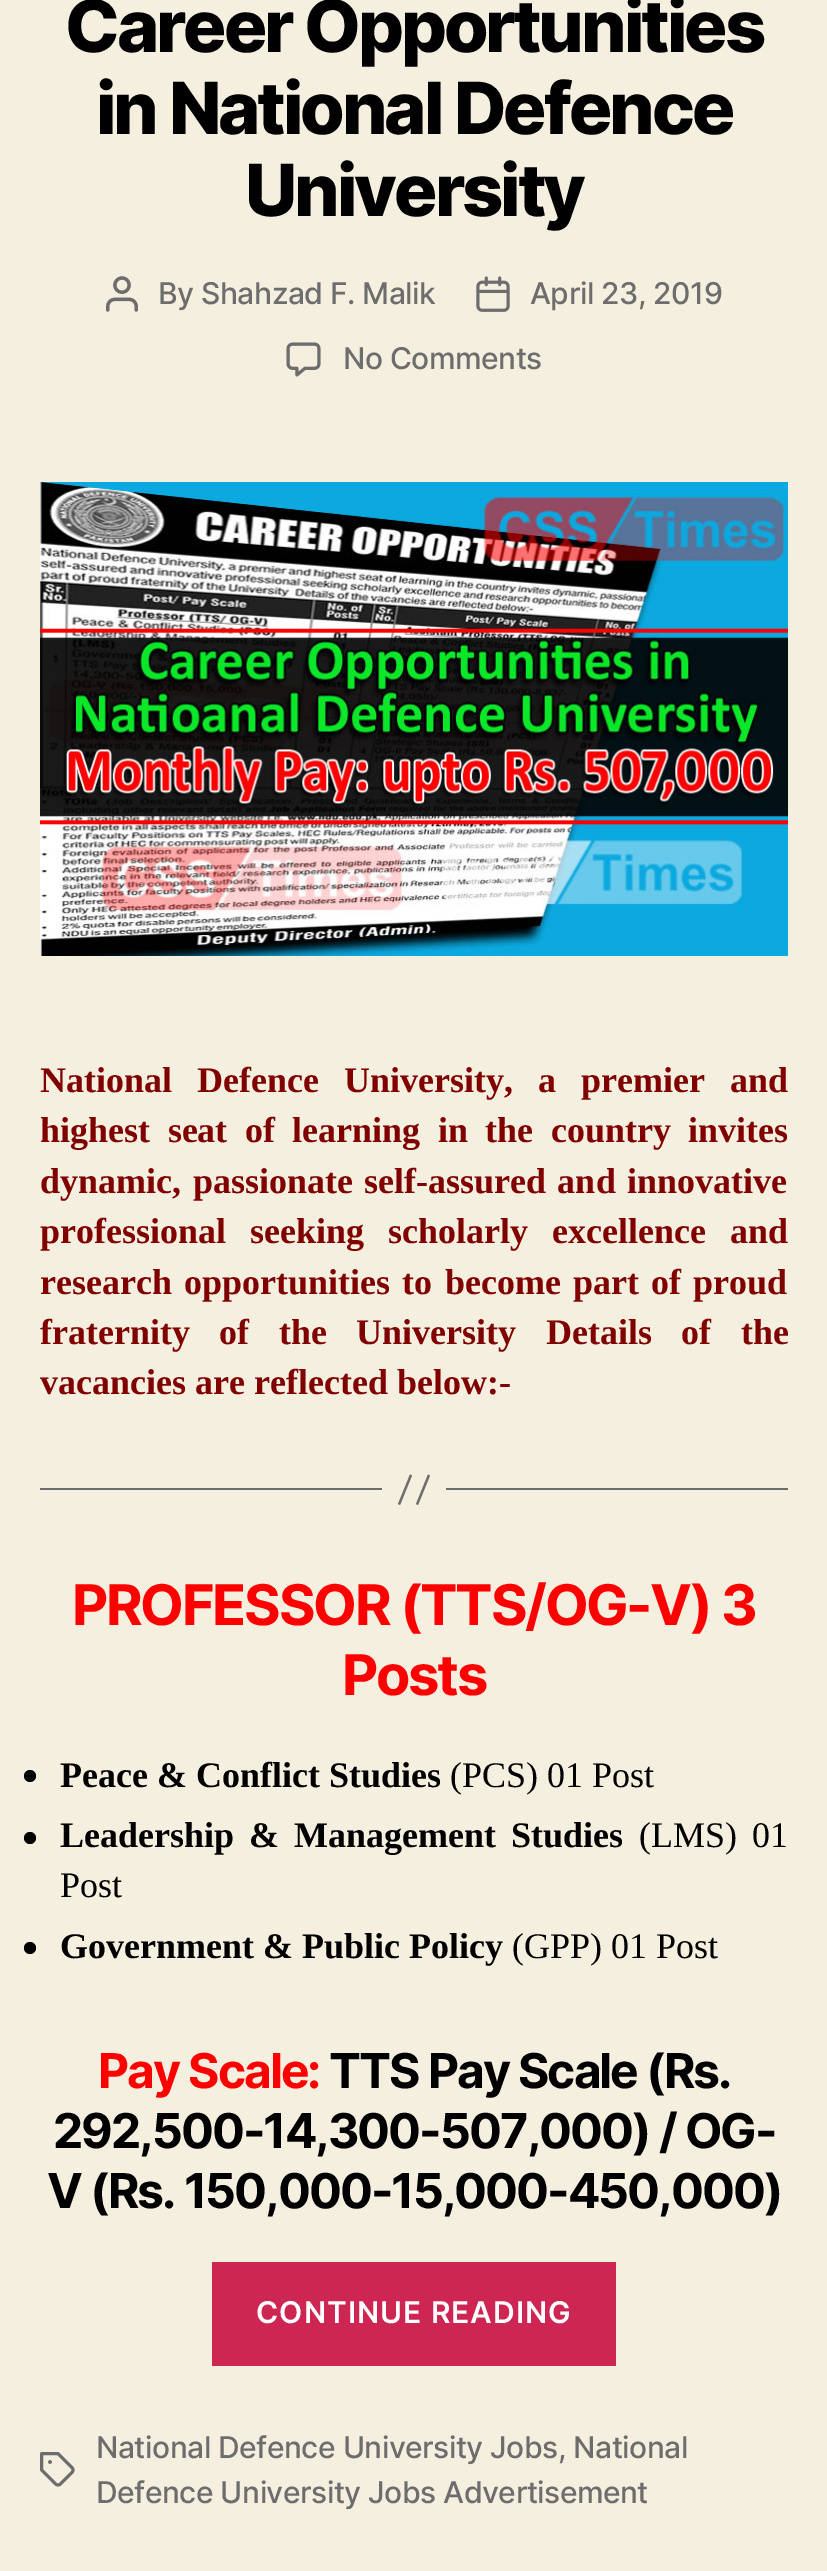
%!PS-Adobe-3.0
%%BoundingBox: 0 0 827 2571
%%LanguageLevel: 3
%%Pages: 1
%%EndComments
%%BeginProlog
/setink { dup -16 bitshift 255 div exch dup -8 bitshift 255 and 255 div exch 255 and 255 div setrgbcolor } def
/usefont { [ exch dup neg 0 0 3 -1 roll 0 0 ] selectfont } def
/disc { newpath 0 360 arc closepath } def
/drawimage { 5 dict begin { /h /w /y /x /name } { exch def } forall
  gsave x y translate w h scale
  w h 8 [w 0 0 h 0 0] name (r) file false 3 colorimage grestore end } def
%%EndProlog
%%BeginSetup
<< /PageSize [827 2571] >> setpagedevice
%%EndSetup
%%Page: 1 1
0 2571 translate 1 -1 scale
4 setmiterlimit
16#F5EFE0 setink
0 0 827 2571 rectfill
/Inter-ExtraBold 72 usefont
16#000000 setink
65 52 moveto -3 0 (Career Opportunities) ashow
96 134 moveto -3 0 (in National Defence) ashow
245 216 moveto -3 0 (University) ashow
(img1.raw) 106 276 32 36 drawimage
/Inter-Medium 30 usefont
16#6D6D6D setink
158 304 moveto -0.5 0 (By Shahzad F. Malik) ashow
(img2.raw) 476 276 34 36 drawimage
530 304 moveto -0.5 0 (April 23, 2019) ashow
(img3.raw) 286 342 35 35 drawimage
343 369 moveto -0.5 0 (No Comments) ashow
(img4.raw) 40 482 748 474 drawimage
/LiberationSerif-Bold 36 usefont
16#800000 setink
40 1092 moveto 16 0 32 (National Defence University, a premier and) widthshow
40 1142 moveto 8.5 0 32 (highest seat of learning in the country invites) widthshow
40 1193 moveto 2.5 0 32 (dynamic, passionate self-assured and innovative) widthshow
40 1243 moveto 15 0 32 (professional seeking scholarly excellence and) widthshow
40 1294 moveto 3.25 0 32 (research opportunities to become part of proud) widthshow
40 1344 moveto 20.5 0 32 (fraternity of the University Details of the) widthshow
40 1394 moveto (vacancies are reflected below:-) show
16#6D6D6D setink
446 1488 342 2 rectfill
40 1488 342 2 rectfill
410 1474.5 moveto 412 1475.5 lineto 400 1505 lineto 398 1504 lineto closepath 428 1474.5 moveto 430 1475.5 lineto 418 1505 lineto 416 1504 lineto closepath fill
/Inter-Bold 56 usefont
16#FF0000 setink
72 1625 moveto -2.3 0 (PROFESSOR \(TTS/OG-V\) 3) ashow
342 1695 moveto -2.3 0 (Posts) ashow
16#000000 setink
30 1776 6 disc fill
/LiberationSerif-Bold 36 usefont
60 1787 moveto (Peace & Conflict Studies) show
/LiberationSerif-Regular 36 usefont
450 1787 moveto (\(PCS\) 01 Post) show
30 1838 6 disc fill
/LiberationSerif-Bold 36 usefont
60 1847 moveto 6 0 32 (Leadership & Management Studies) widthshow
/LiberationSerif-Regular 36 usefont
639 1847 moveto 6 0 32 (\(LMS\) 01) widthshow
60 1897 moveto (Post) show
30 1948 6 disc fill
/LiberationSerif-Bold 36 usefont
60 1958 moveto (Government & Public Policy) show
/LiberationSerif-Regular 36 usefont
512 1958 moveto (\(GPP\) 01 Post) show
/Inter-Bold 48 usefont
16#FF0000 setink
98 2088 moveto -2 0 (Pay Scale:) ashow
16#000000 setink
329 2088 moveto -2 0 (TTS Pay Scale \(Rs.) ashow
53 2148 moveto -2 0 (292,500-14,300-507,000\) / OG-) ashow
47 2208 moveto -2 0 (V \(Rs. 150,000-15,000-450,000\)) ashow
16#CD2653 setink
212 2262 404 104 rectfill
/Inter-SemiBold 30 usefont
16#FFFFFF setink
256 2323 moveto 1 0 (CONTINUE READING) ashow
(img5.raw) 40 2452 35 35 drawimage
/Inter-Medium 30 usefont
16#6D6D6D setink
96 2458 moveto -0.5 0 (National Defence University Jobs, National) ashow
96 2503 moveto -0.5 0 (Defence University Jobs Advertisement) ashow
showpage
%%EOF
